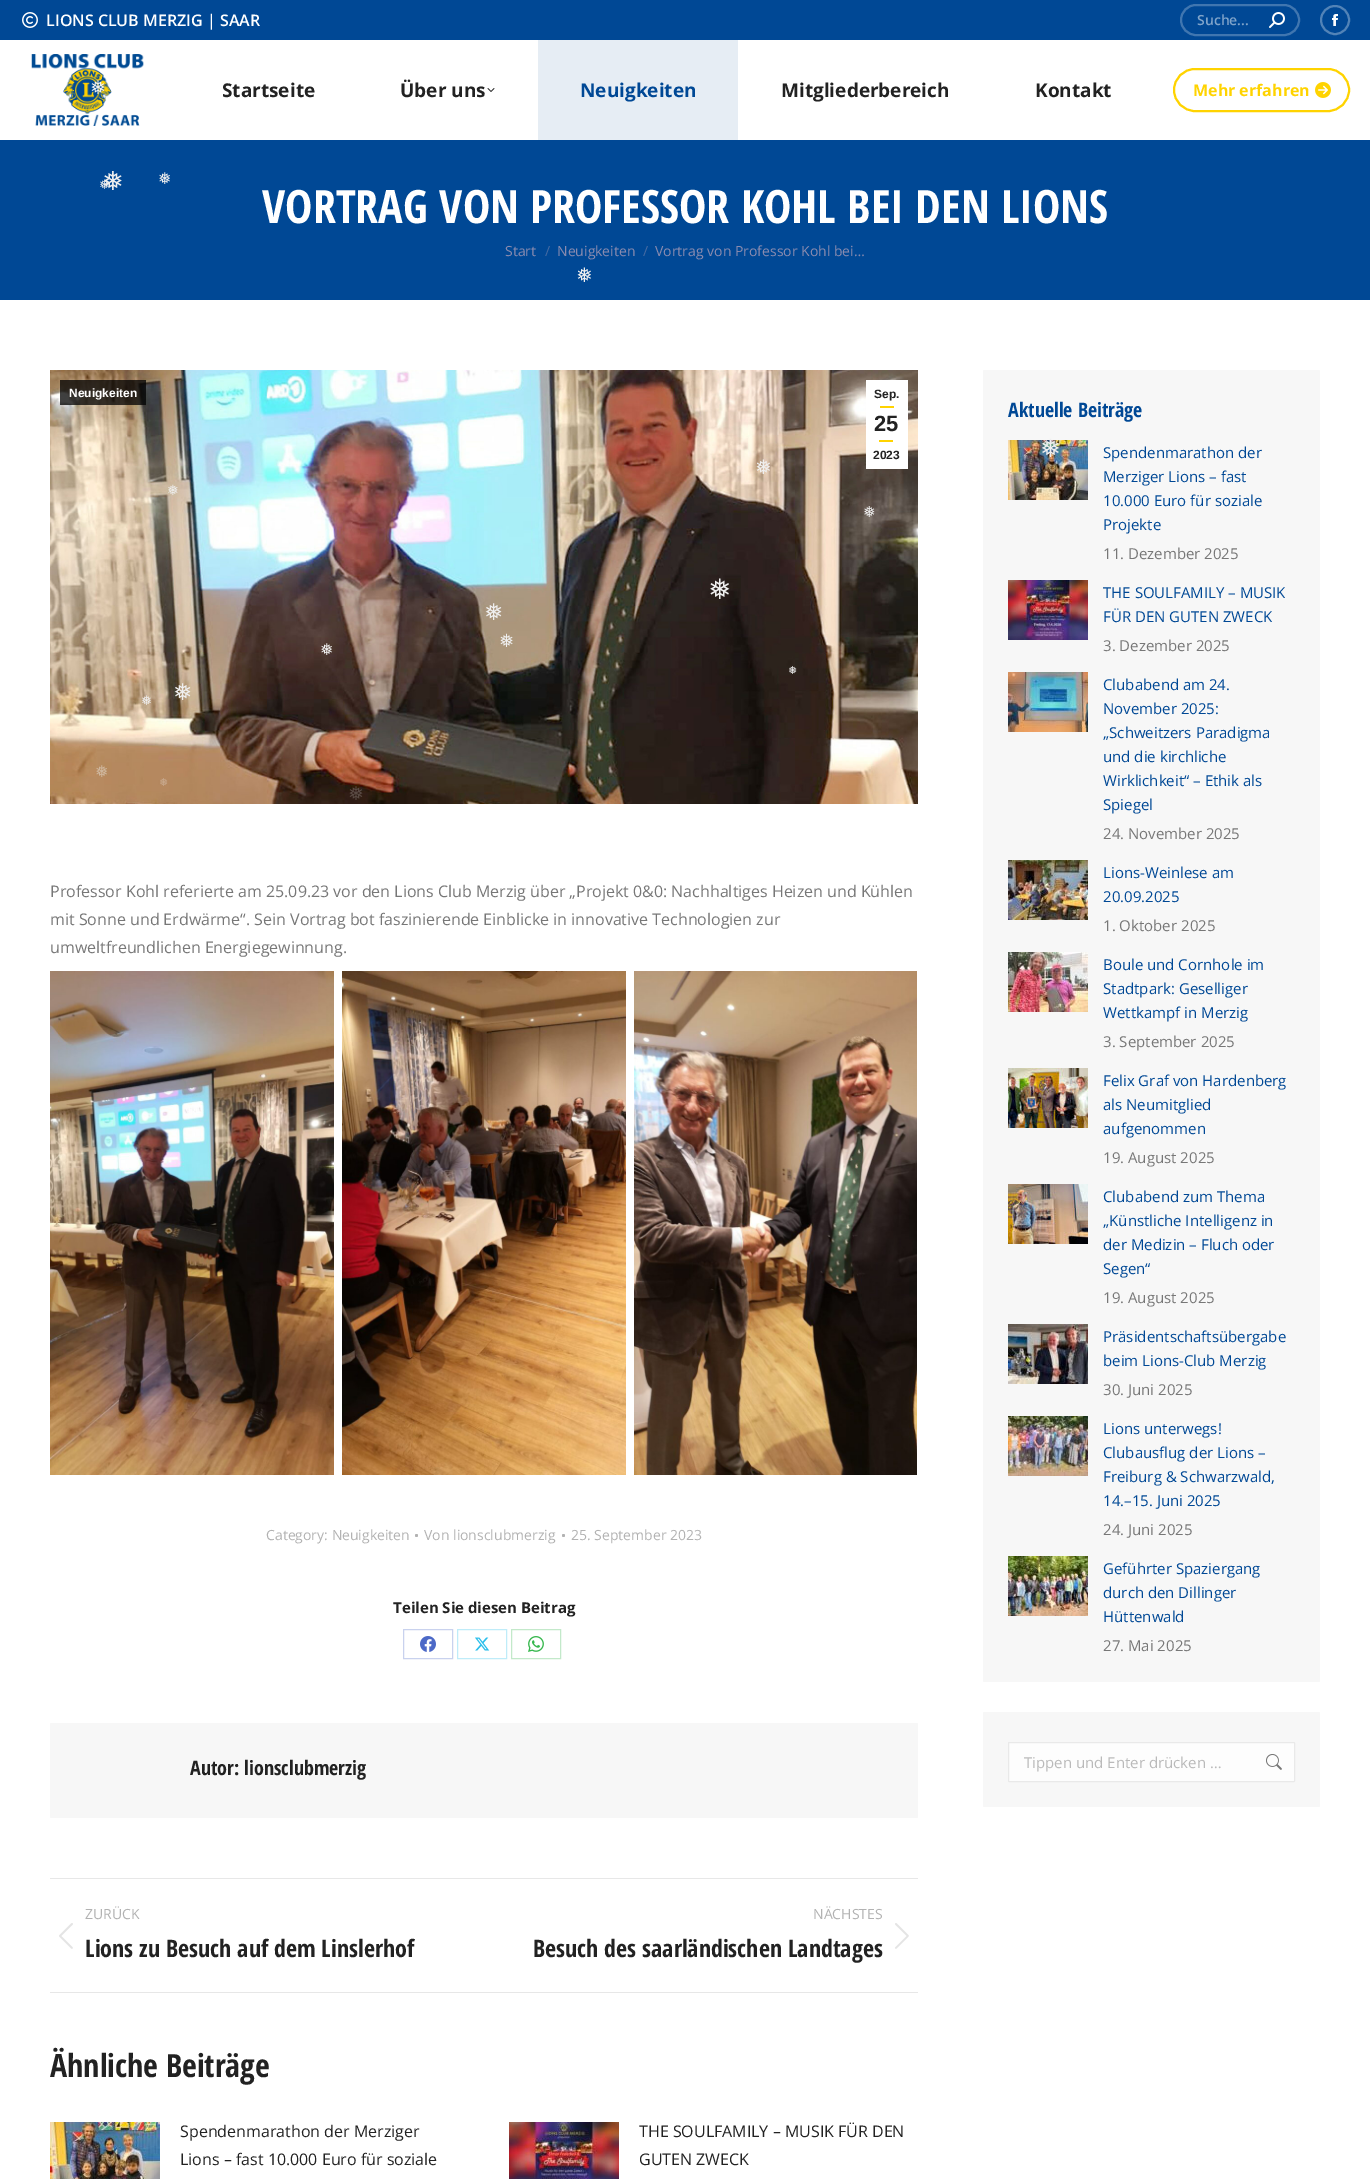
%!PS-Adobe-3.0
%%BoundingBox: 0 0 1370 2179
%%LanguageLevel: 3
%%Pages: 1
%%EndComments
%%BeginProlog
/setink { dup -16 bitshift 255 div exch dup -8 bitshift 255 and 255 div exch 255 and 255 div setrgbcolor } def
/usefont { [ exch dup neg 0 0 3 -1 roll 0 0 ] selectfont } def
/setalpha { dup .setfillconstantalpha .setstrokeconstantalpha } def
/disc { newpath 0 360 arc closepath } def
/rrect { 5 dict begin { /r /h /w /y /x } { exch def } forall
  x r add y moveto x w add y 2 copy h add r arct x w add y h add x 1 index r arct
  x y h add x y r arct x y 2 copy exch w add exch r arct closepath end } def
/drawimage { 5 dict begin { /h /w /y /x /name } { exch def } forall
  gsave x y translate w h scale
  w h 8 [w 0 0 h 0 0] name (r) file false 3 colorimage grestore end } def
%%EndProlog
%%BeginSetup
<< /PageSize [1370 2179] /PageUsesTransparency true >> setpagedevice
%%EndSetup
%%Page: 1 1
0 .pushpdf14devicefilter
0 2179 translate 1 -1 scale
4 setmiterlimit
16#FFFFFF setink
0 0 1370 2179 rectfill
16#004895 setink
0 0 1370 40 rectfill
(img1.raw) 22 12 16 16 drawimage
/OpenSans-SemiBold 16 usefont
16#FFFFFF setink
46 26 moveto (LIONS CLUB MERZIG | SAAR) show
16#4076B0 setink
2 setlinewidth
1181 5 118 30 15 rrect stroke
/OpenSans-SemiBold 14 usefont
16#80A4CA setink
1197 25 moveto (Suche...) show
(img2.raw) 1269 12 16 16 drawimage
16#5283B7 setink
1335 20 14 disc stroke
(img3.raw) 1332 14 6 12 drawimage
(img4.raw) 31 54 113 72 drawimage
/OpenSans-Bold 19 usefont
16#222222 setink
222 97 moveto (Startseite) show
400 97 moveto (Über uns) show
(img5.raw) 487 88 8 4 drawimage
16#E6EDF4 setink
538 40 200 100 rectfill
16#004895 setink
580 97 moveto (Neuigkeiten) show
16#222222 setink
781 97 moveto (Mitgliederbereich) show
1035 97 moveto (Kontakt) show
16#FFD300 setink
1174 69 175 42 21 rrect stroke
/OpenSans-Bold 16 usefont
1193 96 moveto (Mehr erfahren) show
(img6.raw) 1315 82 16 16 drawimage
16#004895 setink
0 140 1370 160 rectfill
/OpenSansCondensed-Bold 46 usefont
16#FFFFFF setink
262 223 moveto (VORTRAG VON PROFESSOR KOHL BEI DEN LIONS) show
/OpenSans-Regular 14 usefont
16#8A8BAF setink
505 256 moveto (Start) show
16#456AA2 setink
545 256 moveto (/) show
16#8A8BAF setink
557 256 moveto (Neuigkeiten) show
16#456AA2 setink
643 256 moveto (/) show
16#8A8BAF setink
655 256 moveto (Vortrag von Professor Kohl bei…) show
(img7.raw) 50 370 868 434 drawimage
0.75 setalpha
16#000000 setink
60 380 86 25 rectfill
/LiberationSans-Bold 12 usefont
1 setalpha
16#FFFFFF setink
69 397 moveto (Neuigkeiten) show
866 380 42 89 rectfill
16#222222 setink
874 398 moveto (Sep.) show
16#FFD300 setink
880 406 14 2 rectfill
/LiberationSans-Bold 22 usefont
16#222222 setink
874 431 moveto (25) show
16#FFD300 setink
879 440 14 2 rectfill
/LiberationSans-Bold 12 usefont
16#222222 setink
873 459 moveto (2023) show
/OpenSans-Regular 16 usefont
16#777777 setink
[
    [(Professor Kohl referierte am 25.09.23 vor den Lions Club Merzig über „Projekt 0&0: Nachhaltiges Heizen und Kühlen) 50 897]
    [(mit Sonne und Erdwärme“. Sein Vortrag bot faszinierende Einblicke in innovative Technologien zur) 50 925]
    [(umweltfreundlichen Energiegewinnung.) 50 953]
] { aload pop moveto show } forall
(img8.raw) 50 971 284 504 drawimage
(img9.raw) 342 971 284 504 drawimage
(img10.raw) 634 971 283 504 drawimage
/OpenSans-Regular 14 usefont
16#B2B2B2 setink
266 1540 moveto (Category: Neuigkeiten) show
416.5 1535.5 1.5 disc fill
424 1540 moveto (Von lionsclubmerzig) show
563.5 1535.5 1.5 disc fill
571 1540 moveto (25. September 2023) show
/OpenSans-Bold 15 usefont
16#222222 setink
393 1613 moveto (Teilen Sie diesen Beitrag) show
16#C9D2EE setink
1 setlinewidth
403.5 1629.5 49 29 rectstroke
(img11.raw) 420 1636 16 16 drawimage
16#BFECF9 setink
457.5 1629.5 49 29 rectstroke
(img12.raw) 475 1637 15 14 drawimage
16#C3E9CA setink
511.5 1629.5 49 29 rectstroke
(img13.raw) 528 1636 16 16 drawimage
16#F7F7F7 setink
50 1723 868 95 1 rrect fill
/OpenSansCondensed-Bold 20 usefont
16#222222 setink
190 1775 moveto (Autor: lionsclubmerzig) show
16#E7E7E7 setink
50 1878 868 1 rectfill
50 1992 868 1 rectfill
/OpenSans-Regular 14 usefont
16#B2B2B2 setink
85 1919 moveto (ZURÜCK) show
(img14.raw) 59 1923 14 26 drawimage
/OpenSansCondensed-Bold 24 usefont
16#222222 setink
85 1957 moveto (Lions zu Besuch auf dem Linslerhof) show
/OpenSans-Regular 14 usefont
16#B2B2B2 setink
813 1919 moveto (NÄCHSTES) show
/OpenSansCondensed-Bold 24 usefont
16#222222 setink
533 1957 moveto (Besuch des saarländischen Landtages) show
(img15.raw) 895 1923 14 26 drawimage
/OpenSansCondensed-Bold 32 usefont
50 2077 moveto (Ähnliche Beiträge) show
(img16.raw) 50 2122 110 57 drawimage
/OpenSans-Regular 16 usefont
180 2137 moveto (Spendenmarathon der Merziger) show
180 2165 moveto (Lions – fast 10.000 Euro für soziale) show
(img17.raw) 509 2122 110 57 drawimage
639 2137 moveto (THE SOULFAMILY – MUSIK FÜR DEN) show
639 2165 moveto (GUTEN ZWECK) show
16#F7F7F7 setink
983 370 337 1312 1 rrect fill
/OpenSansCondensed-Bold 20 usefont
16#004895 setink
1008 417 moveto (Aktuelle Beiträge) show
(img18.raw) 1008 440 80 60 drawimage
/OpenSans-Regular 15 usefont
[
    [(Spendenmarathon der) 1103 458]
    [(Merziger Lions – fast) 1103 482]
    [(10.000 Euro für soziale) 1103 506]
    [(Projekte) 1103 530]
] { aload pop moveto show } forall
16#777777 setink
1103 559 moveto (11. Dezember 2025) show
(img19.raw) 1008 580 80 60 drawimage
16#004895 setink
1103 598 moveto (THE SOULFAMILY – MUSIK) show
1103 622 moveto (FÜR DEN GUTEN ZWECK) show
16#777777 setink
1103 651 moveto (3. Dezember 2025) show
(img20.raw) 1008 672 80 60 drawimage
16#004895 setink
[
    [(Clubabend am 24.) 1103 690]
    [(November 2025:) 1103 714]
    [(„Schweitzers Paradigma) 1103 738]
    [(und die kirchliche) 1103 762]
    [(Wirklichkeit“ – Ethik als) 1103 786]
    [(Spiegel) 1103 810]
] { aload pop moveto show } forall
16#777777 setink
1103 839 moveto (24. November 2025) show
(img21.raw) 1008 860 80 60 drawimage
16#004895 setink
1103 878 moveto (Lions-Weinlese am) show
1103 902 moveto (20.09.2025) show
16#777777 setink
1103 931 moveto (1. Oktober 2025) show
(img22.raw) 1008 952 80 60 drawimage
16#004895 setink
[
    [(Boule und Cornhole im) 1103 970]
    [(Stadtpark: Geselliger) 1103 994]
    [(Wettkampf in Merzig) 1103 1018]
] { aload pop moveto show } forall
16#777777 setink
1103 1047 moveto (3. September 2025) show
(img23.raw) 1008 1068 80 60 drawimage
16#004895 setink
[
    [(Felix Graf von Hardenberg) 1103 1086]
    [(als Neumitglied) 1103 1110]
    [(aufgenommen) 1103 1134]
] { aload pop moveto show } forall
16#777777 setink
1103 1163 moveto (19. August 2025) show
(img24.raw) 1008 1184 80 60 drawimage
16#004895 setink
[
    [(Clubabend zum Thema) 1103 1202]
    [(„Künstliche Intelligenz in) 1103 1226]
    [(der Medizin – Fluch oder) 1103 1250]
    [(Segen“) 1103 1274]
] { aload pop moveto show } forall
16#777777 setink
1103 1303 moveto (19. August 2025) show
(img25.raw) 1008 1324 80 60 drawimage
16#004895 setink
1103 1342 moveto (Präsidentschaftsübergabe) show
1103 1366 moveto (beim Lions-Club Merzig) show
16#777777 setink
1103 1395 moveto (30. Juni 2025) show
(img26.raw) 1008 1416 80 60 drawimage
16#004895 setink
[
    [(Lions unterwegs!) 1103 1434]
    [(Clubausflug der Lions –) 1103 1458]
    [(Freiburg & Schwarzwald,) 1103 1482]
    [(14.–15. Juni 2025) 1103 1506]
] { aload pop moveto show } forall
16#777777 setink
1103 1535 moveto (24. Juni 2025) show
(img27.raw) 1008 1556 80 60 drawimage
16#004895 setink
[
    [(Geführter Spaziergang) 1103 1574]
    [(durch den Dillinger) 1103 1598]
    [(Hüttenwald) 1103 1622]
] { aload pop moveto show } forall
16#777777 setink
1103 1651 moveto (27. Mai 2025) show
16#F7F7F7 setink
983 1712 337 95 1 rrect fill
16#FDFDFD setink
1008.5 1742.5 286 39 0.5 rrect gsave fill grestore
16#E9E9E9 setink
stroke
16#BABABA setink
1024 1768 moveto (Tippen und Enter drücken …) show
(img28.raw) 1266 1754 16 16 drawimage
/DejaVuSans-Regular 19 usefont
16#EFEFEF setink
90 94 moveto (❅) show
/DejaVuSans-Regular 13 usefont
99 189 moveto (❅) show
/DejaVuSans-Regular 26 usefont
102 190 moveto (❅) show
/DejaVuSans-Regular 16 usefont
158 184 moveto (❅) show
/DejaVuSans-Regular 20 usefont
576 282 moveto (❅) show
/DejaVuSans-Regular 25 usefont
1040 457 moveto (❅) show
/DejaVuSans-Regular 20 usefont
755 474 moveto (❅) show
/DejaVuSans-Regular 14 usefont
167 495 moveto (❅) show
/DejaVuSans-Regular 15 usefont
863 517 moveto (❅) show
/DejaVuSans-Regular 28 usefont
708 599 moveto (❅) show
/DejaVuSans-Regular 23 usefont
484 620 moveto (❅) show
/DejaVuSans-Regular 18 usefont
499 647 moveto (❅) show
/DejaVuSans-Regular 16 usefont
320 655 moveto (❅) show
/DejaVuSans-Regular 11 usefont
788 674 moveto (❅) show
/DejaVuSans-Regular 13 usefont
141 705 moveto (❅) show
/DejaVuSans-Regular 23 usefont
173 700 moveto (❅) show
/DejaVuSans-Regular 16 usefont
16#CFB79E setink
95 777 moveto (❅) show
/DejaVuSans-Regular 11 usefont
16#C8A98E setink
159 786 moveto (❅) show
/DejaVuSans-Regular 19 usefont
16#594A43 setink
348 800 moveto (❅) show
.poppdf14devicefilter showpage
%%EOF
